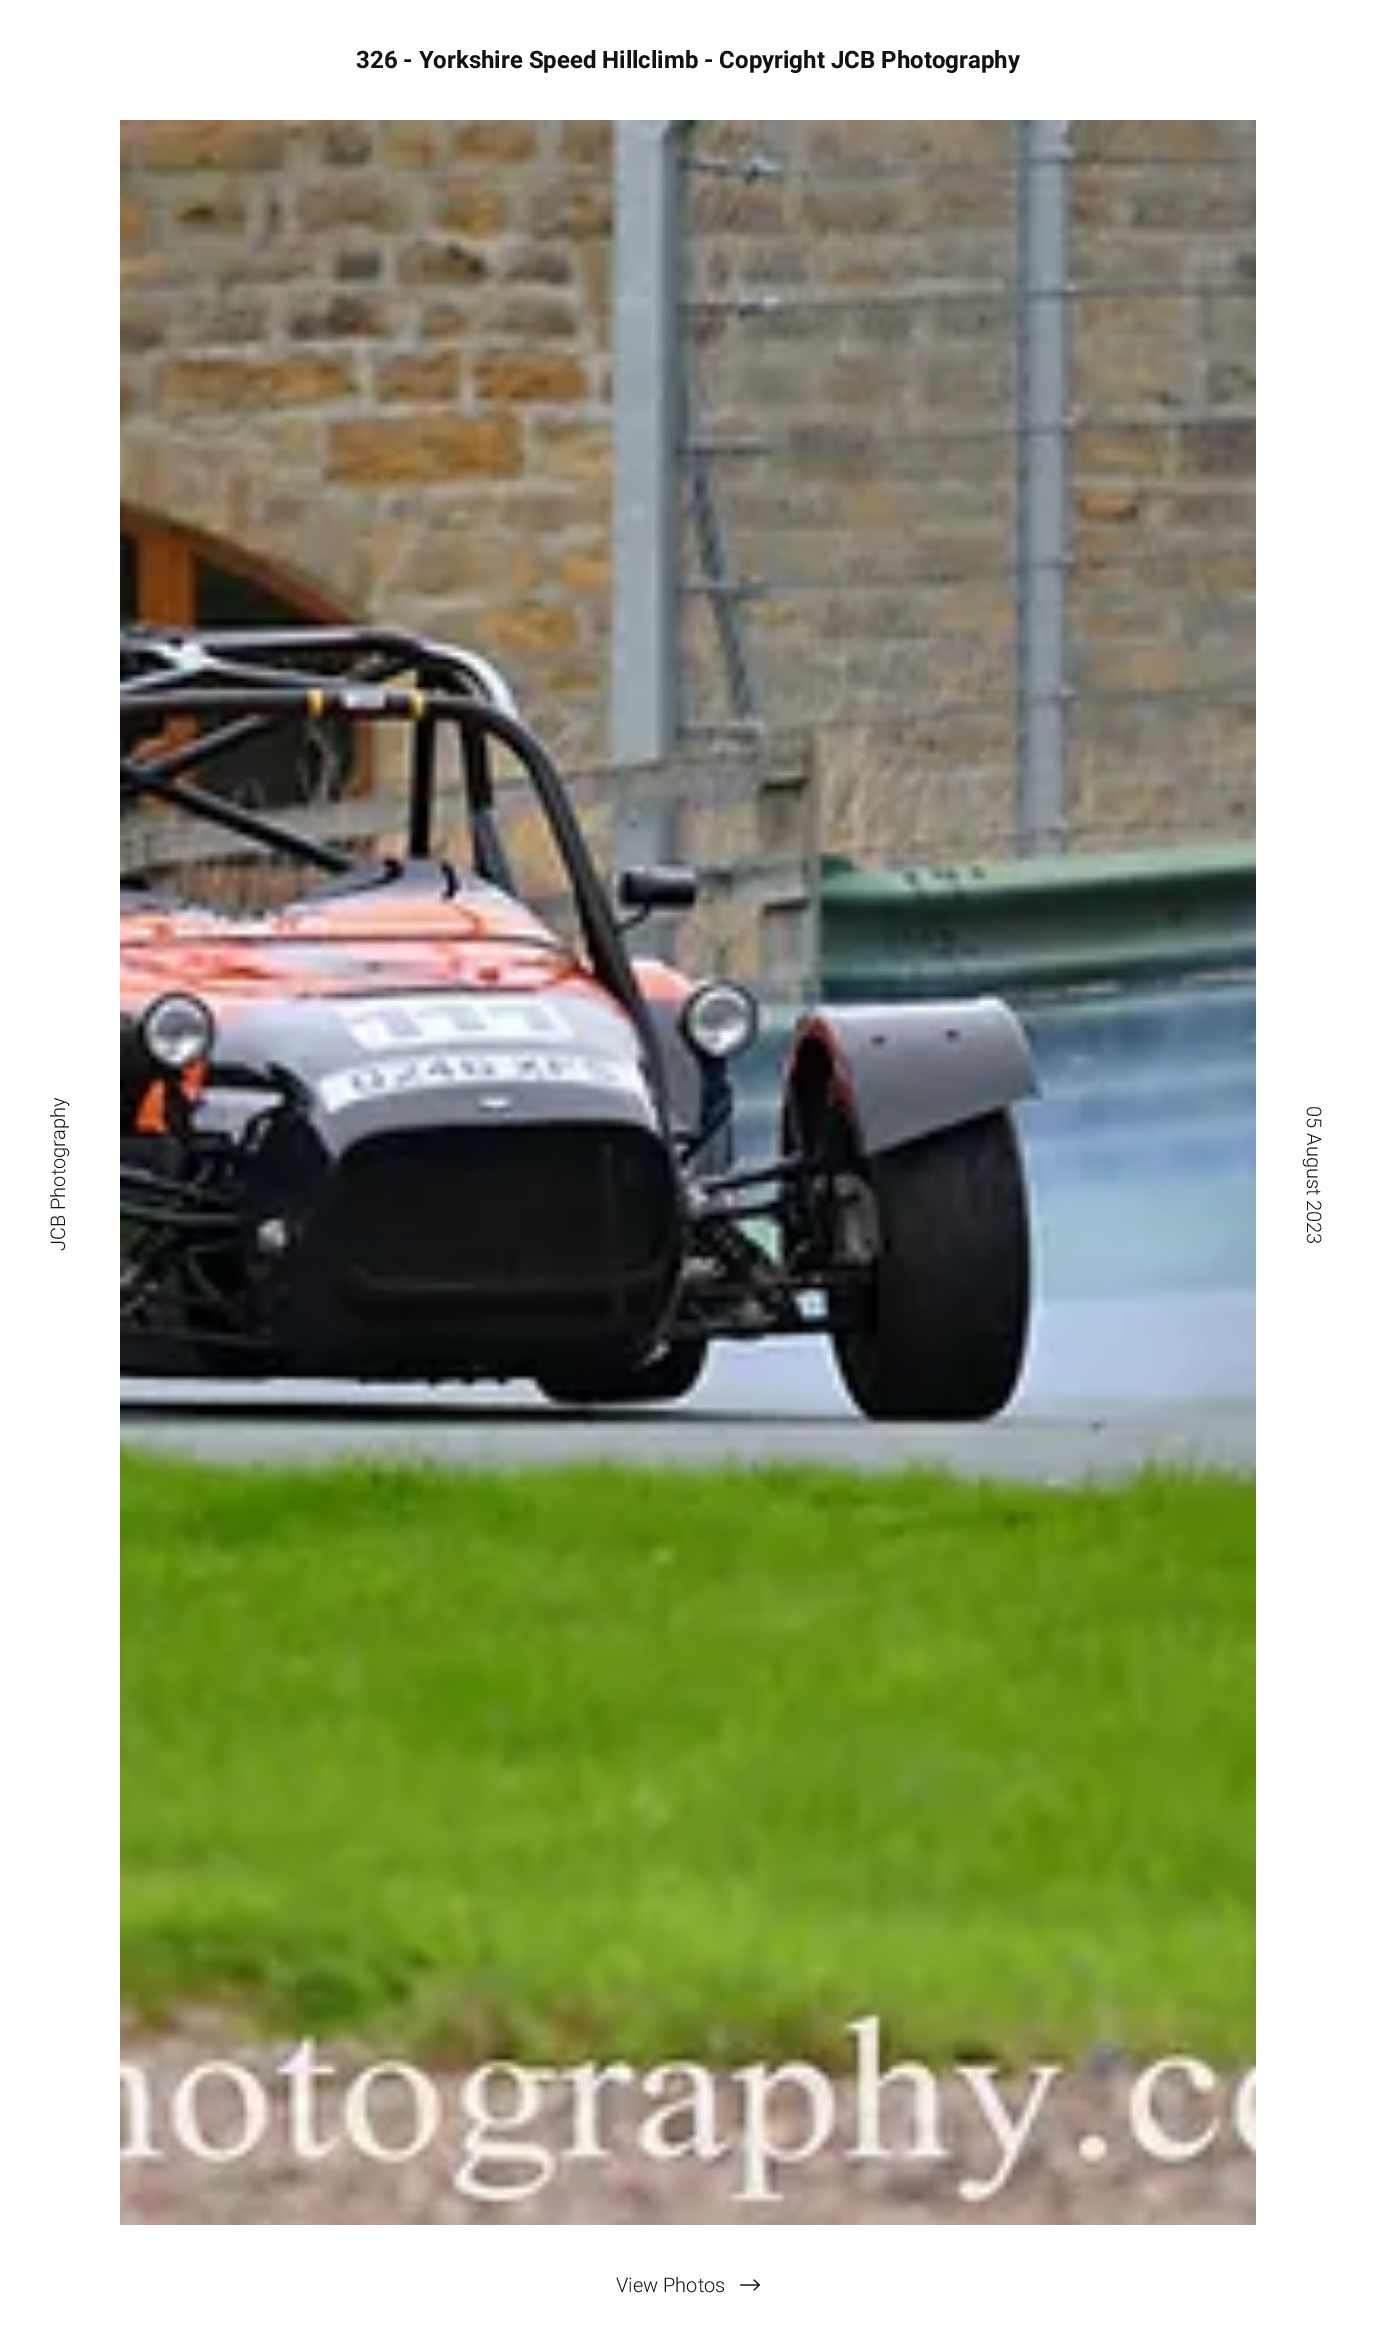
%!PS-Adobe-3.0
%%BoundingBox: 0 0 1376 2345
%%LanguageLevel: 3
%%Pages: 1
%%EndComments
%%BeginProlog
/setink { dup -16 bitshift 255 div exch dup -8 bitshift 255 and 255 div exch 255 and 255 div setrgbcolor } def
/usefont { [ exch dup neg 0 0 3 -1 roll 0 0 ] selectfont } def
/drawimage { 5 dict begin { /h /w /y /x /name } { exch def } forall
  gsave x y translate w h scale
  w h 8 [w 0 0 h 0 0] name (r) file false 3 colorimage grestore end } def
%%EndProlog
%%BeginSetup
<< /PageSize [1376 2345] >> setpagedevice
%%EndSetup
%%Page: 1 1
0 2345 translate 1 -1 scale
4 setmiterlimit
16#FFFFFF setink
0 0 1376 2345 rectfill
/Heebo-Bold 24 usefont
16#121212 setink
356 68 moveto (326 - Yorkshire Speed Hillclimb - Copyright JCB Photography) show
/Heebo-Light 20 usefont
gsave 65 1251 translate -90 rotate 0 0 moveto (JCB Photography) show grestore
(img1.raw) 120 120 1136 2105 drawimage
gsave 1307 1106 translate 90 rotate 0 0 moveto (05 August 2023) show grestore
616 2292 moveto (View Photos) show
(img2.raw) 740 2279 20 12 drawimage
showpage
%%EOF
